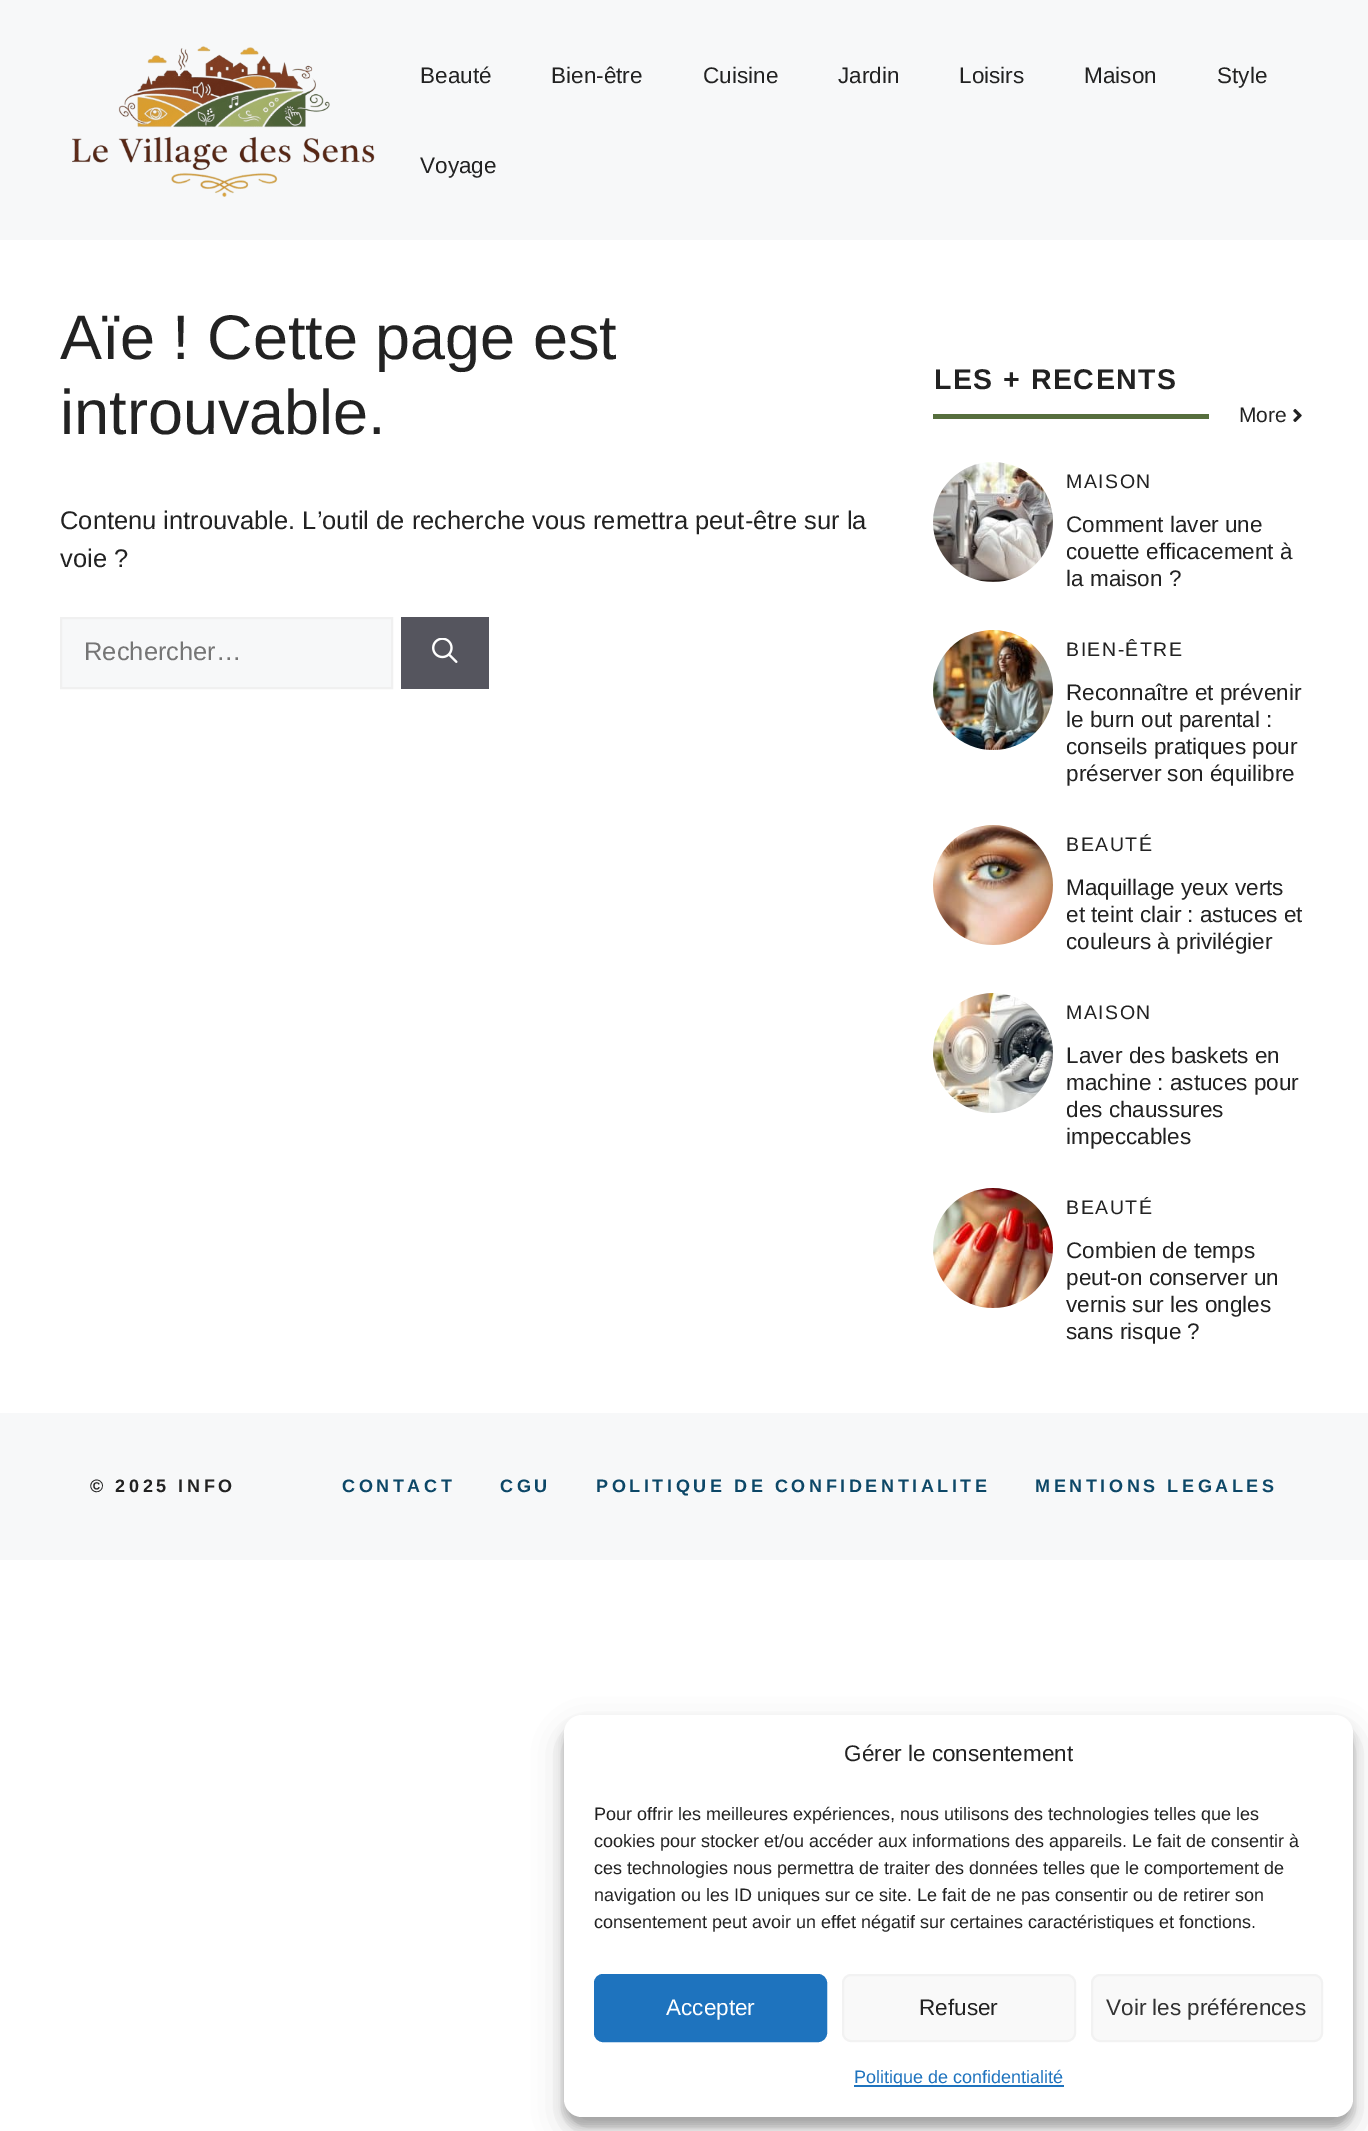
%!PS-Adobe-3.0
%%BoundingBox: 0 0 1368 2131
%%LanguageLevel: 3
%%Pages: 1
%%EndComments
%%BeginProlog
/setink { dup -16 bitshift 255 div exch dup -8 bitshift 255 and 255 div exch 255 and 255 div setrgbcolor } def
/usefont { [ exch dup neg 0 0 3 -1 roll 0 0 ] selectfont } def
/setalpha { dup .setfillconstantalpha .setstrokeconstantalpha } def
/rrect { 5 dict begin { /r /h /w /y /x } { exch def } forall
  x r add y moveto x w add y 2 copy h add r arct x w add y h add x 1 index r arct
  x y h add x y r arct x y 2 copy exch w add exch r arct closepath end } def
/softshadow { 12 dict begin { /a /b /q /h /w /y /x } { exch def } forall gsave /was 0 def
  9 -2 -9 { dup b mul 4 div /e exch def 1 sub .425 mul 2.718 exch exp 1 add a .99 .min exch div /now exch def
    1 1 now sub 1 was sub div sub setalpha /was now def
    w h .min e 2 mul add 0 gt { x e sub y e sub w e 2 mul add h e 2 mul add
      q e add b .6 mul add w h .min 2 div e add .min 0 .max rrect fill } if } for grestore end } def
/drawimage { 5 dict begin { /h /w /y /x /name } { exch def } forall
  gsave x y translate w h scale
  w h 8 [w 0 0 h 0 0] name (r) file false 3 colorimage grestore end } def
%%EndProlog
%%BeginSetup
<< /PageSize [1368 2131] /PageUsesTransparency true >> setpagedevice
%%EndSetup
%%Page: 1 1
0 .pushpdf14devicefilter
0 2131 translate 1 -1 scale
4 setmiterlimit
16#FFFFFF setink
0 0 1368 2131 rectfill
16#F7F8F9 setink
0 0 1368 240 rectfill
(img1.raw) 72 46 303 151 drawimage
/LiberationSans-Regular 22.5 usefont
16#222222 setink
[
    [(Beauté) 420 83]
    [(Bien-être) 551 83]
    [(Cuisine) 703 83]
    [(Jardin) 838 83]
    [(Loisirs) 959 83]
    [(Maison) 1084 83]
    [(Style) 1217 83]
    [(Voyage) 420 173]
] { aload pop moveto show } forall
/LiberationSans-Regular 63 usefont
60 359 moveto (Aïe ! Cette page est) show
60 434 moveto (introuvable.) show
/LiberationSans-Regular 25.5 usefont
60 529 moveto (Contenu introuvable. L’outil de recherche vous remettra peut-être sur la) show
60 567 moveto (voie ?) show
16#F7F8F9 setink
61 618 moveto 392 618 lineto 392 688 lineto 61 688 lineto closepath gsave fill grestore
16#F0F0F0 setink
2 setlinewidth
stroke
16#757575 setink
84 660 moveto (Rechercher…) show
16#55555E setink
401 617 88 72 rectfill
(img2.raw) 432 638 26 25 drawimage
/LiberationSans-Bold 28.5 usefont
16#222222 setink
934 389 moveto 1.5 0 (LES + RECENTS) ashow
16#566E3D setink
933 414 276 5 rectfill
/LiberationSans-Regular 21 usefont
16#222222 setink
1239 422 moveto (More) show
(img3.raw) 1293 408 9 14 drawimage
(img4.raw) 933 462 120 120 drawimage
/LiberationSans-Regular 19.5 usefont
1066 488 moveto 1.5 0 (MAISON) ashow
/LiberationSans-Regular 22.5 usefont
[
    [(Comment laver une) 1066 532]
    [(couette efficacement à) 1066 559]
    [(la maison ?) 1066 586]
] { aload pop moveto show } forall
(img5.raw) 933 630 120 120 drawimage
/LiberationSans-Regular 19.5 usefont
1066 656 moveto 1.5 0 (BIEN-ÊTRE) ashow
/LiberationSans-Regular 22.5 usefont
[
    [(Reconnaître et prévenir) 1066 700]
    [(le burn out parental :) 1066 727]
    [(conseils pratiques pour) 1066 754]
    [(préserver son équilibre) 1066 781]
] { aload pop moveto show } forall
(img6.raw) 933 825 120 120 drawimage
/LiberationSans-Regular 19.5 usefont
1066 851 moveto 1.5 0 (BEAUTÉ) ashow
/LiberationSans-Regular 22.5 usefont
[
    [(Maquillage yeux verts) 1066 895]
    [(et teint clair : astuces et) 1066 922]
    [(couleurs à privilégier) 1066 949]
] { aload pop moveto show } forall
(img7.raw) 933 993 120 120 drawimage
/LiberationSans-Regular 19.5 usefont
1066 1019 moveto 1.5 0 (MAISON) ashow
/LiberationSans-Regular 22.5 usefont
[
    [(Laver des baskets en) 1066 1063]
    [(machine : astuces pour) 1066 1090]
    [(des chaussures) 1066 1117]
    [(impeccables) 1066 1144]
] { aload pop moveto show } forall
(img8.raw) 933 1188 120 120 drawimage
/LiberationSans-Regular 19.5 usefont
1066 1214 moveto 1.5 0 (BEAUTÉ) ashow
/LiberationSans-Regular 22.5 usefont
[
    [(Combien de temps) 1066 1258]
    [(peut-on conserver un) 1066 1285]
    [(vernis sur les ongles) 1066 1312]
    [(sans risque ?) 1066 1339]
] { aload pop moveto show } forall
16#F7F8F9 setink
0 1413 1368 147 rectfill
/LiberationSans-Bold 18 usefont
16#222222 setink
90 1492 moveto 3.6 0 (© 2025 INFO) ashow
16#0C4767 setink
342 1492 moveto 3.6 0 (CONTACT) ashow
500 1492 moveto 3.6 0 (CGU) ashow
596 1492 moveto 3.6 0 (POLITIQUE DE CONFIDENTIALITE) ashow
1035 1492 moveto 3.6 0 (MENTIONS LEGALES) ashow
16#000000 setink
564 1724 789 402 18 4.5 0.23 softshadow
564 1730 789 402 18 15 0.19 softshadow
16#FFFFFF setink
564 1715 789 402 18 rrect fill
/LiberationSans-Regular 22.5 usefont
16#222222 setink
844 1761 moveto (Gérer le consentement) show
/LiberationSans-Regular 18 usefont
[
    [(Pour offrir les meilleures expériences, nous utilisons des technologies telles que les) 594 1820]
    [(cookies pour stocker et/ou accéder aux informations des appareils. Le fait de consentir à) 594 1847]
    [(ces technologies nous permettra de traiter des données telles que le comportement de) 594 1874]
    [(navigation ou les ID uniques sur ce site. Le fait de ne pas consentir ou de retirer son) 594 1901]
    [(consentement peut avoir un effet négatif sur certaines caractéristiques et fonctions.) 594 1928]
] { aload pop moveto show } forall
16#1E73BE setink
595 1975 231 66 8 rrect gsave fill grestore
stroke
/LiberationSans-Regular 22.5 usefont
16#FFFFFF setink
666 2015 moveto (Accepter) show
16#F9F9F9 setink
843 1975 232 66 8 rrect gsave fill grestore
16#F2F2F2 setink
stroke
16#222222 setink
919 2015 moveto (Refuser) show
16#F9F9F9 setink
1092 1975 230 66 8 rrect gsave fill grestore
16#F2F2F2 setink
stroke
16#333333 setink
1106 2015 moveto (Voir les préférences) show
16#1E73BE setink
854 2085 210 2 rectfill
/LiberationSans-Regular 18 usefont
854 2083 moveto (Politique de confidentialité) show
.poppdf14devicefilter showpage
%%EOF
